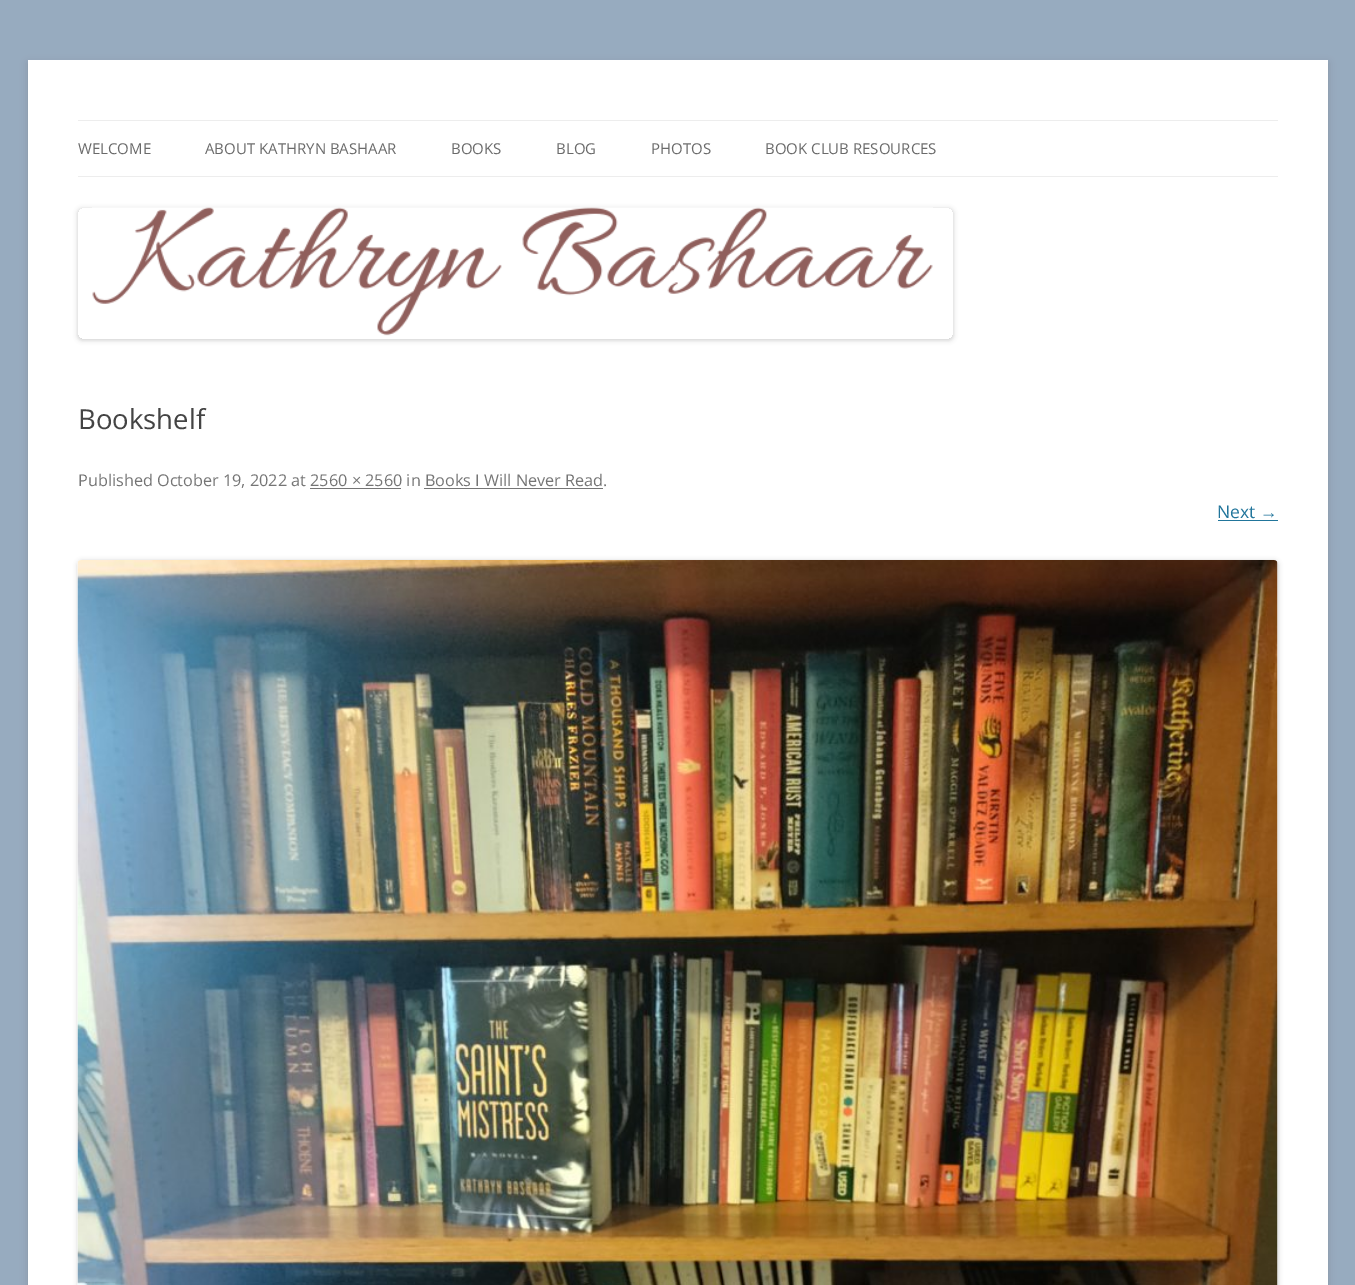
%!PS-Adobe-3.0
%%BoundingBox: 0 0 1355 1285
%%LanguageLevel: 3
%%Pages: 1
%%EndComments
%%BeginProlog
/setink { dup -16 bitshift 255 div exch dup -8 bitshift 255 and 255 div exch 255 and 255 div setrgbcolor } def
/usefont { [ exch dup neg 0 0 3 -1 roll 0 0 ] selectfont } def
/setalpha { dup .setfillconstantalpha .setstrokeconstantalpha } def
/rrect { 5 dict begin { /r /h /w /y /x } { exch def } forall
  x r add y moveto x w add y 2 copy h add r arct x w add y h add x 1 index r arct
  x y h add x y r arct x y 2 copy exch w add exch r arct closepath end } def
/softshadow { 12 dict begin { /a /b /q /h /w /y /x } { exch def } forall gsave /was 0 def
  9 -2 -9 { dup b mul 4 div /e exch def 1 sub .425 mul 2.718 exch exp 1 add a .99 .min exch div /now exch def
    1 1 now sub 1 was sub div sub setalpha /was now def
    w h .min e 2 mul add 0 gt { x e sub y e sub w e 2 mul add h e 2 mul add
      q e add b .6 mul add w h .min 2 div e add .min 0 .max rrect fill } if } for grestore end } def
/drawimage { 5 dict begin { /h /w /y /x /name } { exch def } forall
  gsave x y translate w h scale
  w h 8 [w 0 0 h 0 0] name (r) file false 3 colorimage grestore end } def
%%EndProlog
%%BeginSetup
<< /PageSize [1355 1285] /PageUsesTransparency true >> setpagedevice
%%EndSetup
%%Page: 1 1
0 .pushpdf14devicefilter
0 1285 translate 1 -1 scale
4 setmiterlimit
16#97ABBF setink
0 0 1355 1285 rectfill
16#646464 setink
28 63 1300 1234 0 4 0.3 softshadow
[
    [28 60 1300 1225 16#FFFFFF]
    [78 120 1200 1 16#EDEDED]
    [78 176 1200 1 16#EDEDED]
] { aload pop setink rectfill } forall
/OpenSans-Regular 15 usefont
16#6A6A6A setink
[
    [(WELCOME) 78 154]
    [(ABOUT KATHRYN BASHAAR) 205 154]
    [(BOOKS) 451 154]
    [(BLOG) 556 154]
    [(PHOTOS) 651 154]
    [(BOOK CLUB RESOURCES) 765 154]
] { aload pop moveto show } forall
gsave
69 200 moveto 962 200 lineto 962 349 lineto 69 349 lineto closepath 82 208 moveto 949 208 lineto 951 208 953 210 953 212 curveto 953 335 lineto 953 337 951 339 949 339 curveto 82 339 lineto 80 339 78 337 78 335 curveto 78 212 lineto 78 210 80 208 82 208 curveto closepath eoclip newpath
16#000000 setink
78 209 875 131 4 2.5 0.2 softshadow
grestore
(img1.raw) 92 207 841 129 drawimage
/OpenSans-Regular 27.5 usefont
16#444444 setink
78 429 moveto (Bookshelf) show
/OpenSans-Regular 16.25 usefont
16#757575 setink
78 486 moveto (Published October 19, 2022 at 2560 × 2560 in Books I Will Never Read.) show
310 488 91 1 rectfill
424 488 179 1 rectfill
/OpenSans-Regular 17.5 usefont
16#21759B setink
1217 518 moveto (Next) show
/LiberationSans-Regular 17.5 usefont
1260 518 moveto (→) show
1218 520 60 1 rectfill
16#000000 setink
78 561 1200 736 4 2.5 0.2 softshadow
(img2.raw) 77 560 1201 725 drawimage
.poppdf14devicefilter showpage
%%EOF
